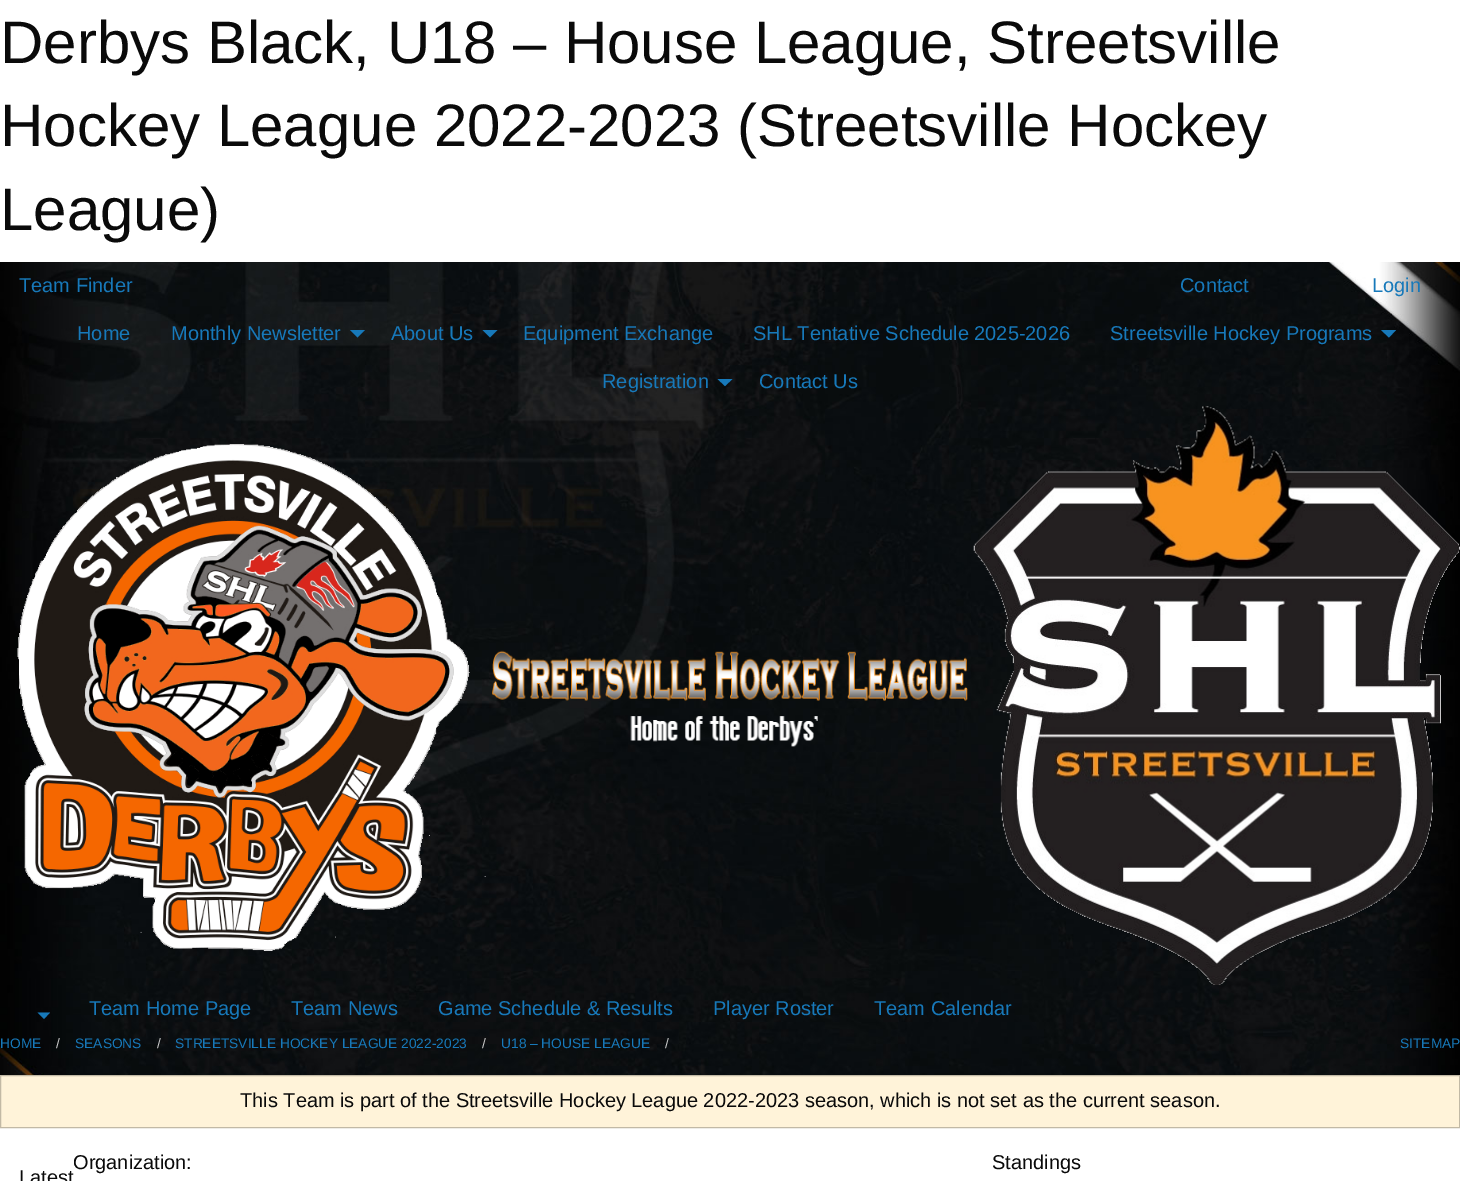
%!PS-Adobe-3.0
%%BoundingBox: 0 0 1460 1181
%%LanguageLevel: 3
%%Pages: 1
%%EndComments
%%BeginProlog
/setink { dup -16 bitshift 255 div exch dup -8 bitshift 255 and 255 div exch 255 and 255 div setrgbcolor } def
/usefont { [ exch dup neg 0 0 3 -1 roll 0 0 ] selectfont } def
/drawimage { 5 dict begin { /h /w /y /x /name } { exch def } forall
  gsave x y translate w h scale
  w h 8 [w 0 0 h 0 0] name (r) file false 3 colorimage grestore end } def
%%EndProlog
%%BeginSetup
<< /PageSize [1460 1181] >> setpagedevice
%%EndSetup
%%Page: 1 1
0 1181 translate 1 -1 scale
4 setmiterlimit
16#FFFFFF setink
0 0 1460 1181 rectfill
/LiberationSans-Regular 60 usefont
16#0A0A0A setink
[
    [(Derbys Black, U18 – House League, Streetsville) 0 63]
    [(Hockey League 2022-2023 \(Streetsville Hockey) 0 146]
    [(League\)) 0 230]
] { aload pop moveto show } forall
(img1.raw) 0 262 1460 813 drawimage
/LiberationSans-Regular 20 usefont
16#1779BA setink
[
    [(Team Finder) 19 292]
    [(Contact) 1180 292]
    [(Login) 1372 292]
    [(Home) 77 340]
    [(Monthly Newsletter) 171 340]
] { aload pop moveto show } forall
350 330 moveto 365 330 lineto 357.5 337.5 lineto closepath fill
391 340 moveto (About Us) show
482.5 330 moveto 497.5 330 lineto 490 337.5 lineto closepath fill
[
    [(Equipment Exchange) 523 340]
    [(SHL Tentative Schedule 2025-2026) 753 340]
    [(Streetsville Hockey Programs) 1110 340]
] { aload pop moveto show } forall
1381 330 moveto 1396 330 lineto 1389 337.5 lineto closepath fill
602 388 moveto (Registration) show
717.5 379 moveto 732.5 379 lineto 725 386 lineto closepath fill
759 388 moveto (Contact Us) show
(img2.raw) 17 444 469 507 drawimage
(img3.raw) 492 650 476 97 drawimage
(img4.raw) 973 406 487 579 drawimage
37.5 1012.5 moveto 50 1012.5 lineto 44 1019 lineto closepath fill
[
    [(Team Home Page) 89 1015]
    [(Team News) 291 1015]
    [(Game Schedule & Results) 438 1015]
    [(Player Roster) 713 1015]
    [(Team Calendar) 874 1015]
] { aload pop moveto show } forall
/LiberationSans-Regular 13.75 usefont
0 1048 moveto (HOME) show
16#CACACA setink
56 1048 moveto (/) show
16#1779BA setink
75 1048 moveto (SEASONS) show
16#CACACA setink
157 1048 moveto (/) show
16#1779BA setink
175 1048 moveto (STREETSVILLE HOCKEY LEAGUE 2022-2023) show
16#CACACA setink
482 1048 moveto (/) show
16#1779BA setink
501 1048 moveto (U18 – HOUSE LEAGUE) show
16#CACACA setink
665 1048 moveto (/) show
16#1779BA setink
1400 1048 moveto (SITEMAP) show
16#FFF3D9 setink
0.5 1075.5 moveto 1459.5 1075.5 lineto 1459.5 1127.5 lineto 0.5 1127.5 lineto closepath gsave fill grestore
16#C2B9A5 setink
stroke
/LiberationSans-Regular 20 usefont
16#0A0A0A setink
[
    [(This Team is part of the Streetsville Hockey League 2022-2023 season, which is not set as the current season.) 240 1107]
    [(Organization:) 73 1169]
    [(Latest) 19 1184]
    [(Standings) 992 1169]
] { aload pop moveto show } forall
showpage
%%EOF
